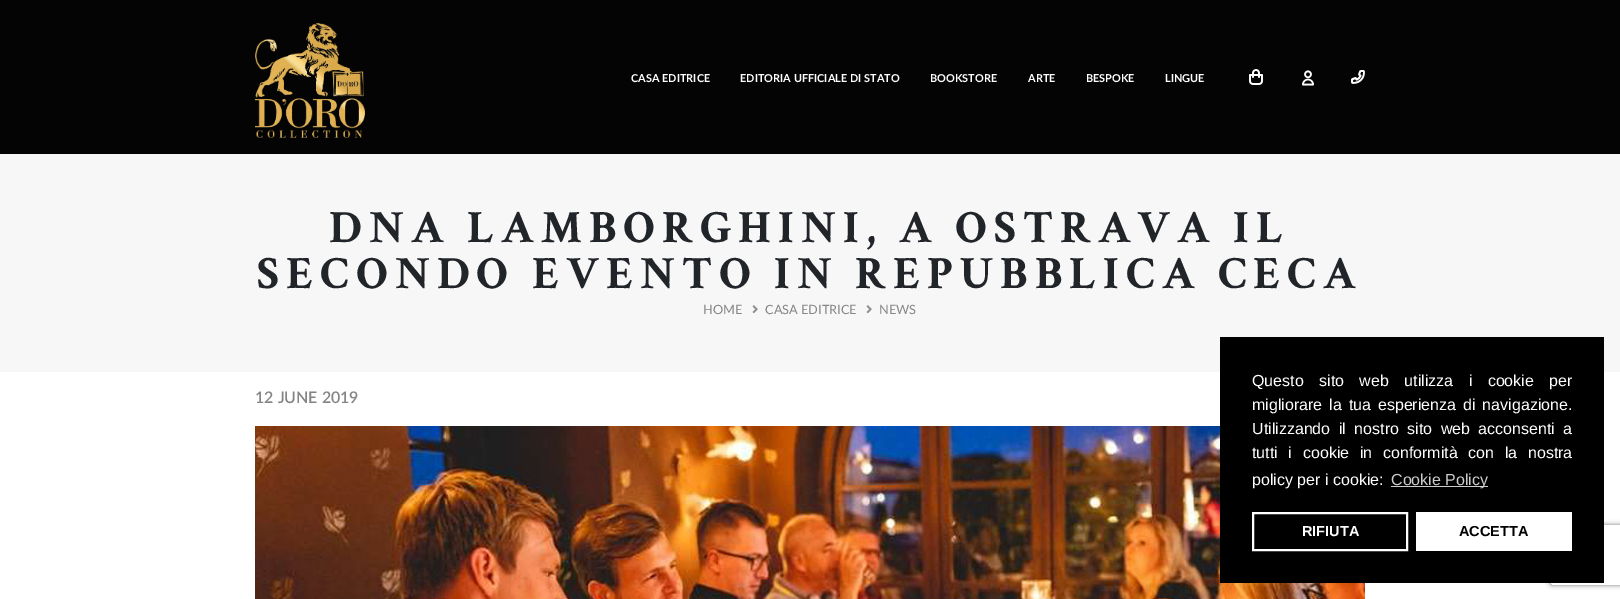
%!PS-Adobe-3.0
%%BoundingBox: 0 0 1620 599
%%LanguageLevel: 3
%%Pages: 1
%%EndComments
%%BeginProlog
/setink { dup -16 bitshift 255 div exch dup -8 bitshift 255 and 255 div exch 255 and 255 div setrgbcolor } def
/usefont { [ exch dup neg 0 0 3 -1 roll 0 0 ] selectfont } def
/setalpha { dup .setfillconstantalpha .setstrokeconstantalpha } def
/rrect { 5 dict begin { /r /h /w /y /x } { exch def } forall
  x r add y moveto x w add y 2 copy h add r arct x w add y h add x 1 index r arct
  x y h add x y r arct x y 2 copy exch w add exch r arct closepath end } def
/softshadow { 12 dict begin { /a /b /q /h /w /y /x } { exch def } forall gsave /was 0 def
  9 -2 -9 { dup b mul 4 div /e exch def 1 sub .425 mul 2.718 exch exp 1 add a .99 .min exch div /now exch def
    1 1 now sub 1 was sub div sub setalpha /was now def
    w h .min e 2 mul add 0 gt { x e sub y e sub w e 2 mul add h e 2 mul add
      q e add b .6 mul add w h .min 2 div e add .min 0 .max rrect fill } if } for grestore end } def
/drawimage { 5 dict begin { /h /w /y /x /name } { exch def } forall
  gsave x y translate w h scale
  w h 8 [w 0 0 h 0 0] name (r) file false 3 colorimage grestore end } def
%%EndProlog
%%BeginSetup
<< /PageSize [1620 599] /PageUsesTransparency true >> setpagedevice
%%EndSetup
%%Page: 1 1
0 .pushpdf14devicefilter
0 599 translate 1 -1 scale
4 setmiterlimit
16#FFFFFF setink
0 0 1620 599 rectfill
16#040404 setink
0 0 1620 154 rectfill
(img1.raw) 255 23 110 115 drawimage
/Lato-Bold 10.9 usefont
16#FFFFFF setink
[
    [(CASA EDITRICE) 631 82]
    [(EDITORIA UFFICIALE DI STATO) 740 82]
    [(BOOKSTORE) 930 82]
    [(ARTE) 1028 82]
    [(BESPOKE) 1086 82]
    [(LINGUE) 1165 82]
] { aload pop moveto show } forall
(img2.raw) 1249 69 14 16 drawimage
(img3.raw) 1302 70 12 16 drawimage
(img4.raw) 1351 70 14 14 drawimage
16#F7F7F7 setink
0 154 1620 218 rectfill
/CrimsonText-Bold 46.4 usefont
16#212529 setink
329 242 moveto 6.95 0 (DNA LAMBORGHINI, A OSTRAVA IL) ashow
257 288 moveto 6.95 0 (SECONDO EVENTO IN REPUBBLICA CECA) ashow
/Lato-Regular 12.75 usefont
16#858585 setink
703 314 moveto (HOME) show
(img5.raw) 752 305 6 9 drawimage
765 314 moveto (CASA EDITRICE) show
(img5.raw) 866 305 6 9 drawimage
879 314 moveto (NEWS) show
/Lato-SemiBold 16 usefont
255 403 moveto (12 JUNE 2019) show
(img6.raw) 255 426 1110 173 drawimage
gsave
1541 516 moveto 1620 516 lineto 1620 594 lineto 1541 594 lineto closepath 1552 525 moveto 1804 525 lineto 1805 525 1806 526 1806 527 curveto 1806 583 lineto 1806 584 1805 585 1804 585 curveto 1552 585 lineto 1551 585 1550 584 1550 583 curveto 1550 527 lineto 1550 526 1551 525 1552 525 curveto closepath eoclip newpath
16#808080 setink
1550 525 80 60 2 2.5 1 softshadow
grestore
16#000000 setink
1220 337 384 246 rectfill
/LiberationSans-Regular 16 usefont
16#FFFFFF setink
1252 386 moveto 11 0 32 (Questo sito web utilizza i cookie per) widthshow
1252 410 moveto 2.5 0 32 (migliorare la tua esperienza di navigazione.) widthshow
1252 434 moveto 4 0 32 (Utilizzando il nostro sito web acconsenti a) widthshow
1252 458 moveto 6.25 0 32 (tutti i cookie in conformità con la nostra) widthshow
1252 485 moveto (policy per i cookie:) show
16#CCCCCC setink
1391 486 97 1 rectfill
1391 485 moveto (Cookie Policy) show
16#FFFFFF setink
2 setlinewidth
1253 513 154 37 rectstroke
/LiberationSans-Bold 14.5 usefont
1302 536 moveto (RIFIUTA) show
1416 512 156 39 rectfill
16#000000 setink
1459 536 moveto (ACCETTA) show
.poppdf14devicefilter showpage
%%EOF
